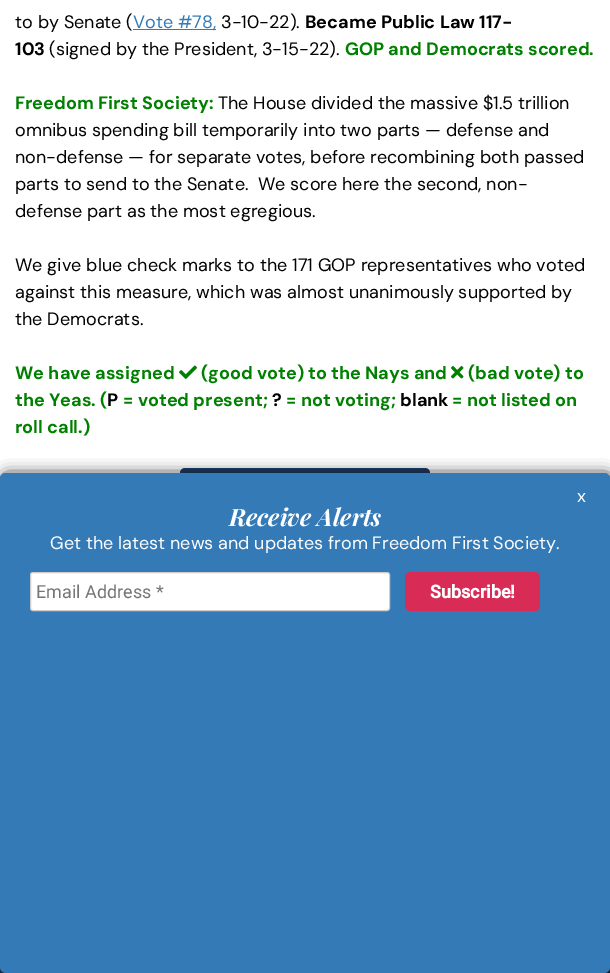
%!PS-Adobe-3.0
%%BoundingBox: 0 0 610 973
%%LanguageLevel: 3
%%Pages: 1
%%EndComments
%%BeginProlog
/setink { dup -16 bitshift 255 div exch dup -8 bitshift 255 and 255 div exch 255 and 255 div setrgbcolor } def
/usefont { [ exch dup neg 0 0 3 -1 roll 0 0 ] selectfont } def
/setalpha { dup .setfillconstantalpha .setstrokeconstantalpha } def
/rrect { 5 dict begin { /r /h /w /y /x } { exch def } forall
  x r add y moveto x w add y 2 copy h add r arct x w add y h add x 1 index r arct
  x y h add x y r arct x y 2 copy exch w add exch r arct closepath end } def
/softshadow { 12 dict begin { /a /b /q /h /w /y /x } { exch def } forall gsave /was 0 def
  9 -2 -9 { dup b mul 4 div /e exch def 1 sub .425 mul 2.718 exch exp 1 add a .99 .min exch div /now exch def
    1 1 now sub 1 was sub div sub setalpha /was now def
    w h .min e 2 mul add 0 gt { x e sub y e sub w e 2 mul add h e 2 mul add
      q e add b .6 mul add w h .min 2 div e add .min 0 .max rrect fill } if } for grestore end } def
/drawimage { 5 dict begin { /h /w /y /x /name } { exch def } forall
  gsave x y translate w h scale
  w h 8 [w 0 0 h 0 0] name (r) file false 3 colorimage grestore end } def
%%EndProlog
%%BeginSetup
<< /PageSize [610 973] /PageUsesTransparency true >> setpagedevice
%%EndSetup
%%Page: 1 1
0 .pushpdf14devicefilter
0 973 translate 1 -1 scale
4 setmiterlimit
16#FFFFFF setink
0 0 610 973 rectfill
/DMSans-Regular 18 usefont
16#000000 setink
15 28 moveto (to by Senate \() show
16#337AB7 setink
133 29 83 1 rectfill
133 28 moveto (Vote #78,) show
16#000000 setink
221 28 moveto (3-10-22\).) show
/DMSans-Bold 18 usefont
305 28 moveto (Became Public Law 117-) show
15 55 moveto (103) show
/DMSans-Regular 18 usefont
49 55 moveto (\(signed by the President, 3-15-22\).) show
/DMSans-Bold 18 usefont
16#008000 setink
345 55 moveto (GOP and Democrats scored.) show
15 109 moveto (Freedom First Society:) show
/DMSans-Regular 18 usefont
16#000000 setink
[
    [(The House divided the massive $1.5 trillion) 218 109]
    [(omnibus spending bill temporarily into two parts — defense and) 15 136]
    [(non-defense — for separate votes, before recombining both passed) 15 163]
    [(parts to send to the Senate.  We score here the second, non-) 15 190]
    [(defense part as the most egregious.) 15 217]
    [(We give blue check marks to the 171 GOP representatives who voted) 15 271]
    [(against this measure, which was almost unanimously supported by) 15 298]
    [(the Democrats.) 15 325]
] { aload pop moveto show } forall
/DMSans-Bold 18 usefont
16#008000 setink
15 379 moveto (We have assigned) show
(img1.raw) 179 365 18 14 drawimage
201 379 moveto (\(good vote\) to the Nays and) show
(img2.raw) 451 366 13 13 drawimage
468 379 moveto (\(bad vote\) to) show
15 406 moveto (the Yeas. \() show
16#000000 setink
107 406 moveto (P) show
16#008000 setink
123 406 moveto (= voted present;) show
16#000000 setink
272 406 moveto (?) show
16#008000 setink
286 406 moveto (= not voting;) show
16#000000 setink
400 406 moveto (blank) show
16#008000 setink
452 406 moveto (= not listed on) show
15 433 moveto (roll call.\)) show
16#1E3E69 setink
180 468 250 39 5 rrect fill
0 967 610 6 rectfill
16#000000 setink
2 475 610 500 6 7.5 1 softshadow
16#337AB7 setink
0 473 610 500 6 rrect fill
0 473 610 168 6 rrect fill
/DMSans-Regular 18 usefont
16#FFFFFF setink
577 502 moveto (x) show
/PlayfairDisplay-BoldItalic 24 usefont
229 526 moveto (Receive Alerts) show
/DMSans-Regular 18 usefont
50 549 moveto (Get the latest news and updates from Freedom First Society.) show
30.5 572.5 359 38 2.5 rrect gsave fill grestore
16#CCCCCC setink
stroke
/Roboto-Regular 18 usefont
16#757575 setink
36 598 moveto (Email Address *) show
16#D82C56 setink
405 572 135 39 5 rrect fill
/Roboto-Bold 18 usefont
16#FFFFFF setink
430 598 moveto (Subscribe!) show
.poppdf14devicefilter showpage
%%EOF
